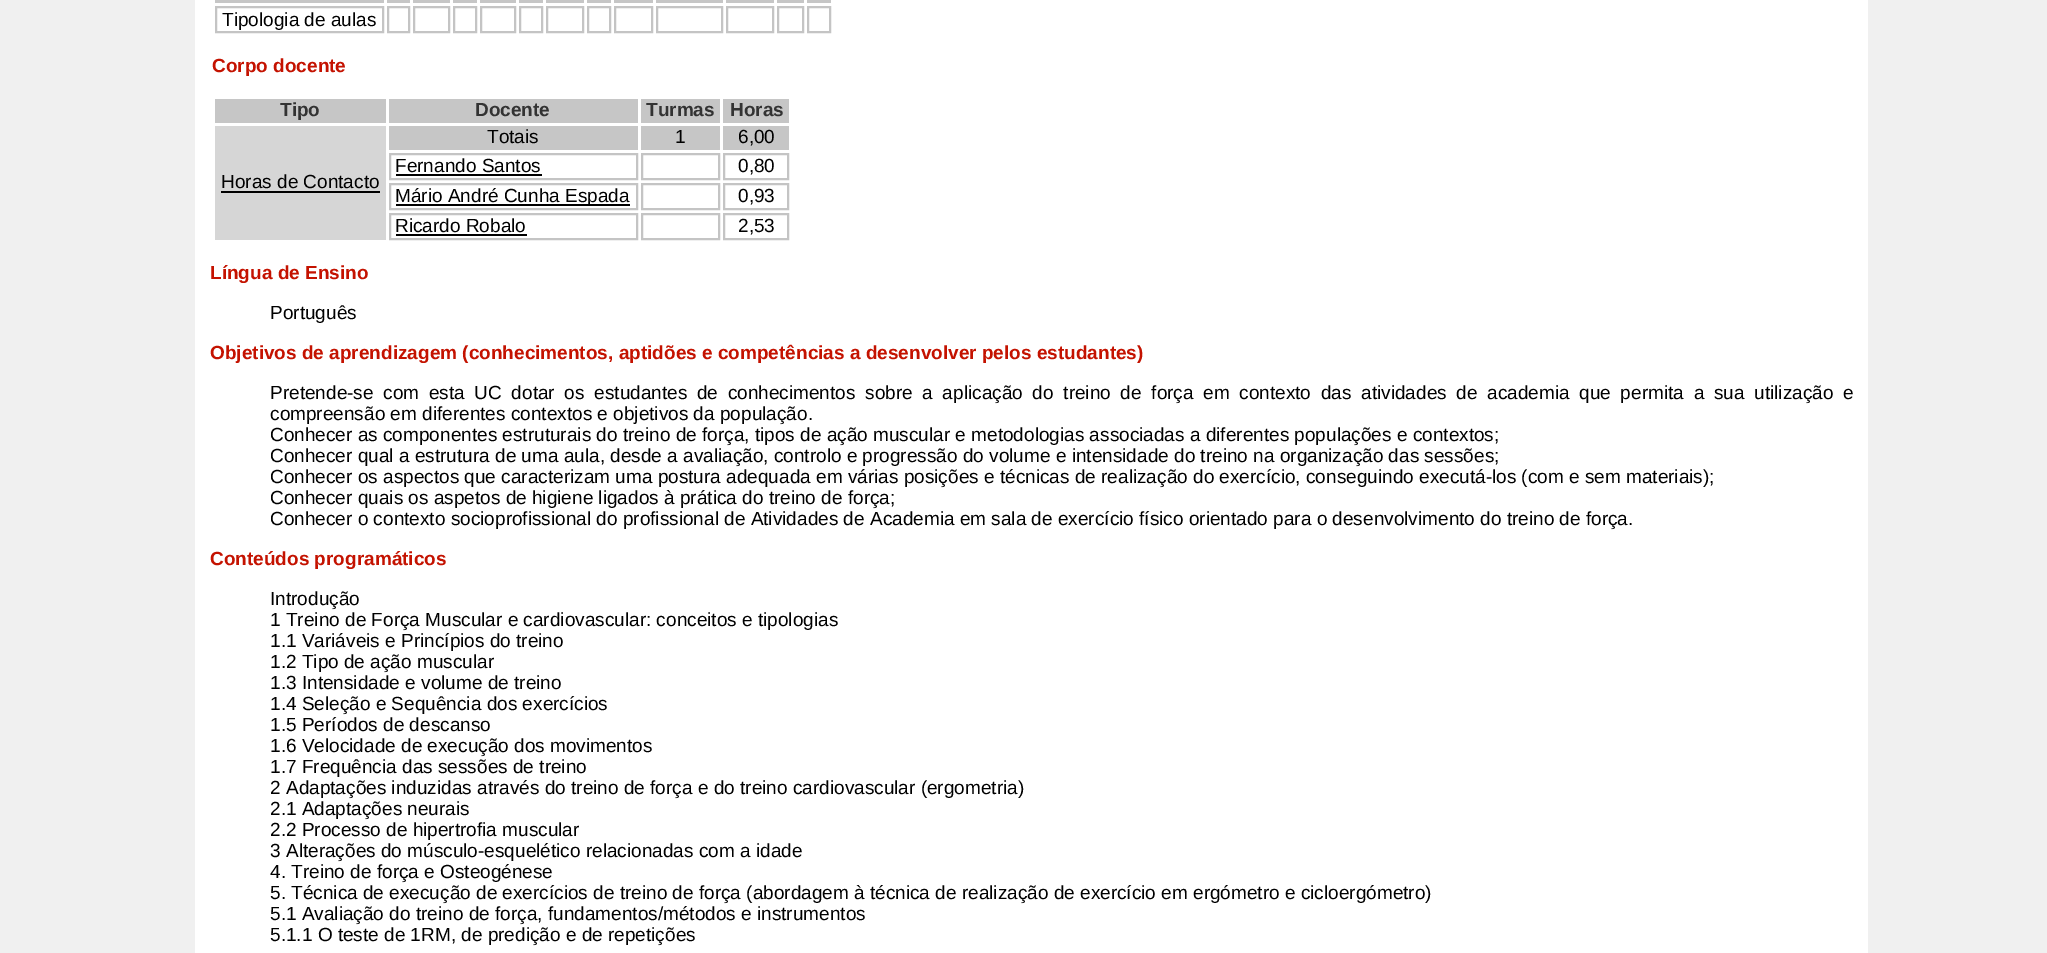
%!PS-Adobe-3.0
%%BoundingBox: 0 0 2047 953
%%LanguageLevel: 3
%%Pages: 1
%%EndComments
%%BeginProlog
/setink { dup -16 bitshift 255 div exch dup -8 bitshift 255 and 255 div exch 255 and 255 div setrgbcolor } def
/usefont { [ exch dup neg 0 0 3 -1 roll 0 0 ] selectfont } def
%%EndProlog
%%BeginSetup
<< /PageSize [2047 953] >> setpagedevice
%%EndSetup
%%Page: 1 1
0 953 translate 1 -1 scale
4 setmiterlimit
16#FFFFFF setink
0 0 2047 953 rectfill
[
    [0 0 195 953 16#F0F0F0]
    [215 0 169 3 16#C6C6C6]
    [387 0 23 3 16#C6C6C6]
    [413 0 37 3 16#C6C6C6]
    [453 0 24 3 16#C6C6C6]
    [480 0 36 3 16#C6C6C6]
    [519 0 24 3 16#C6C6C6]
    [546 0 38 3 16#C6C6C6]
    [587 0 24 3 16#C6C6C6]
    [614 0 39 3 16#C6C6C6]
    [656 0 67 3 16#C6C6C6]
    [726 0 48 3 16#C6C6C6]
    [777 0 27 3 16#C6C6C6]
    [807 0 24 3 16#C6C6C6]
] { aload pop setink rectfill } forall
16#C4C4C4 setink
2 setlinewidth
216 7 167 25 rectstroke
/LiberationSans-Regular 19 usefont
16#000000 setink
222 26 moveto (Tipologia de aulas) show
16#C4C4C4 setink
388 7 21 25 rectstroke
414 7 35 25 rectstroke
454 7 22 25 rectstroke
481 7 34 25 rectstroke
520 7 22 25 rectstroke
547 7 36 25 rectstroke
588 7 22 25 rectstroke
615 7 37 25 rectstroke
657 7 65 25 rectstroke
727 7 46 25 rectstroke
778 7 25 25 rectstroke
808 7 22 25 rectstroke
/LiberationSans-Bold 19 usefont
16#C41200 setink
212 72 moveto (Corpo docente) show
16#C6C6C6 setink
215 99 171 24 rectfill
16#333333 setink
280 116 moveto (Tipo) show
16#C6C6C6 setink
389 99 249 24 rectfill
16#333333 setink
475 116 moveto (Docente) show
16#C6C6C6 setink
641 99 79 24 rectfill
16#333333 setink
646 116 moveto (Turmas) show
16#C6C6C6 setink
723 99 66 24 rectfill
16#333333 setink
730 116 moveto (Horas) show
16#C6C6C6 setink
389 126 249 24 rectfill
/LiberationSans-Regular 19 usefont
16#000000 setink
487 143 moveto (Totais) show
16#C6C6C6 setink
641 126 79 24 rectfill
16#000000 setink
675 143 moveto (1) show
16#C6C6C6 setink
723 126 66 24 rectfill
16#000000 setink
738 143 moveto (6,00) show
16#D6D6D6 setink
215 126 171 114 rectfill
16#000000 setink
221 188 moveto (Horas de Contacto) show
221 191 159 2 rectfill
16#C4C4C4 setink
390 154 247 25 rectstroke
16#000000 setink
395 172 moveto (Fernando Santos) show
396 174 146 2 rectfill
16#C4C4C4 setink
642 154 77 25 rectstroke
724 154 64 25 rectstroke
16#000000 setink
738 172 moveto (0,80) show
16#C4C4C4 setink
390 184 247 25 rectstroke
16#000000 setink
396 204 234 2 rectfill
395 202 moveto (Mário André Cunha Espada) show
16#C4C4C4 setink
642 184 77 25 rectstroke
724 184 64 25 rectstroke
16#000000 setink
738 202 moveto (0,93) show
16#C4C4C4 setink
390 214 247 25 rectstroke
16#000000 setink
395 232 moveto (Ricardo Robalo) show
396 234 131 2 rectfill
16#C4C4C4 setink
642 214 77 25 rectstroke
724 214 64 25 rectstroke
16#000000 setink
738 232 moveto (2,53) show
/LiberationSans-Bold 19 usefont
16#C41200 setink
210 279 moveto (Língua de Ensino) show
/LiberationSans-Regular 19 usefont
16#000000 setink
270 319 moveto (Português) show
/LiberationSans-Bold 19 usefont
16#C41200 setink
210 359 moveto (Objetivos de aprendizagem \(conhecimentos, aptidões e competências a desenvolver pelos estudantes\)) show
/LiberationSans-Regular 19 usefont
16#000000 setink
270 399 moveto 4.4 0 32 (Pretende-se com esta UC dotar os estudantes de conhecimentos sobre a aplicação do treino de força em contexto das atividades de academia que permita a sua utilização e) widthshow
[
    [(compreensão em diferentes contextos e objetivos da população.) 270 420]
    [(Conhecer as componentes estruturais do treino de força, tipos de ação muscular e metodologias associadas a diferentes populações e contextos;) 270 441]
    [(Conhecer qual a estrutura de uma aula, desde a avaliação, controlo e progressão do volume e intensidade do treino na organização das sessões;) 270 462]
    [(Conhecer os aspectos que caracterizam uma postura adequada em várias posições e técnicas de realização do exercício, conseguindo executá-los \(com e sem materiais\);) 270 483]
    [(Conhecer quais os aspetos de higiene ligados à prática do treino de força;) 270 504]
    [(Conhecer o contexto socioprofissional do profissional de Atividades de Academia em sala de exercício físico orientado para o desenvolvimento do treino de força.) 270 525]
] { aload pop moveto show } forall
/LiberationSans-Bold 19 usefont
16#C41200 setink
210 565 moveto (Conteúdos programáticos) show
/LiberationSans-Regular 19 usefont
16#000000 setink
[
    [(Introdução) 270 605]
    [(1 Treino de Força Muscular e cardiovascular: conceitos e tipologias) 270 626]
    [(1.1 Variáveis e Princípios do treino) 270 647]
    [(1.2 Tipo de ação muscular) 270 668]
    [(1.3 Intensidade e volume de treino) 270 689]
    [(1.4 Seleção e Sequência dos exercícios) 270 710]
    [(1.5 Períodos de descanso) 270 731]
    [(1.6 Velocidade de execução dos movimentos) 270 752]
    [(1.7 Frequência das sessões de treino) 270 773]
    [(2 Adaptações induzidas através do treino de força e do treino cardiovascular \(ergometria\)) 270 794]
    [(2.1 Adaptações neurais) 270 815]
    [(2.2 Processo de hipertrofia muscular) 270 836]
    [(3 Alterações do músculo-esquelético relacionadas com a idade) 270 857]
    [(4. Treino de força e Osteogénese) 270 878]
    [(5. Técnica de execução de exercícios de treino de força \(abordagem à técnica de realização de exercício em ergómetro e cicloergómetro\)) 270 899]
    [(5.1 Avaliação do treino de força, fundamentos/métodos e instrumentos) 270 920]
    [(5.1.1 O teste de 1RM, de predição e de repetições) 270 941]
] { aload pop moveto show } forall
16#F0F0F0 setink
1868 0 179 953 rectfill
showpage
%%EOF
